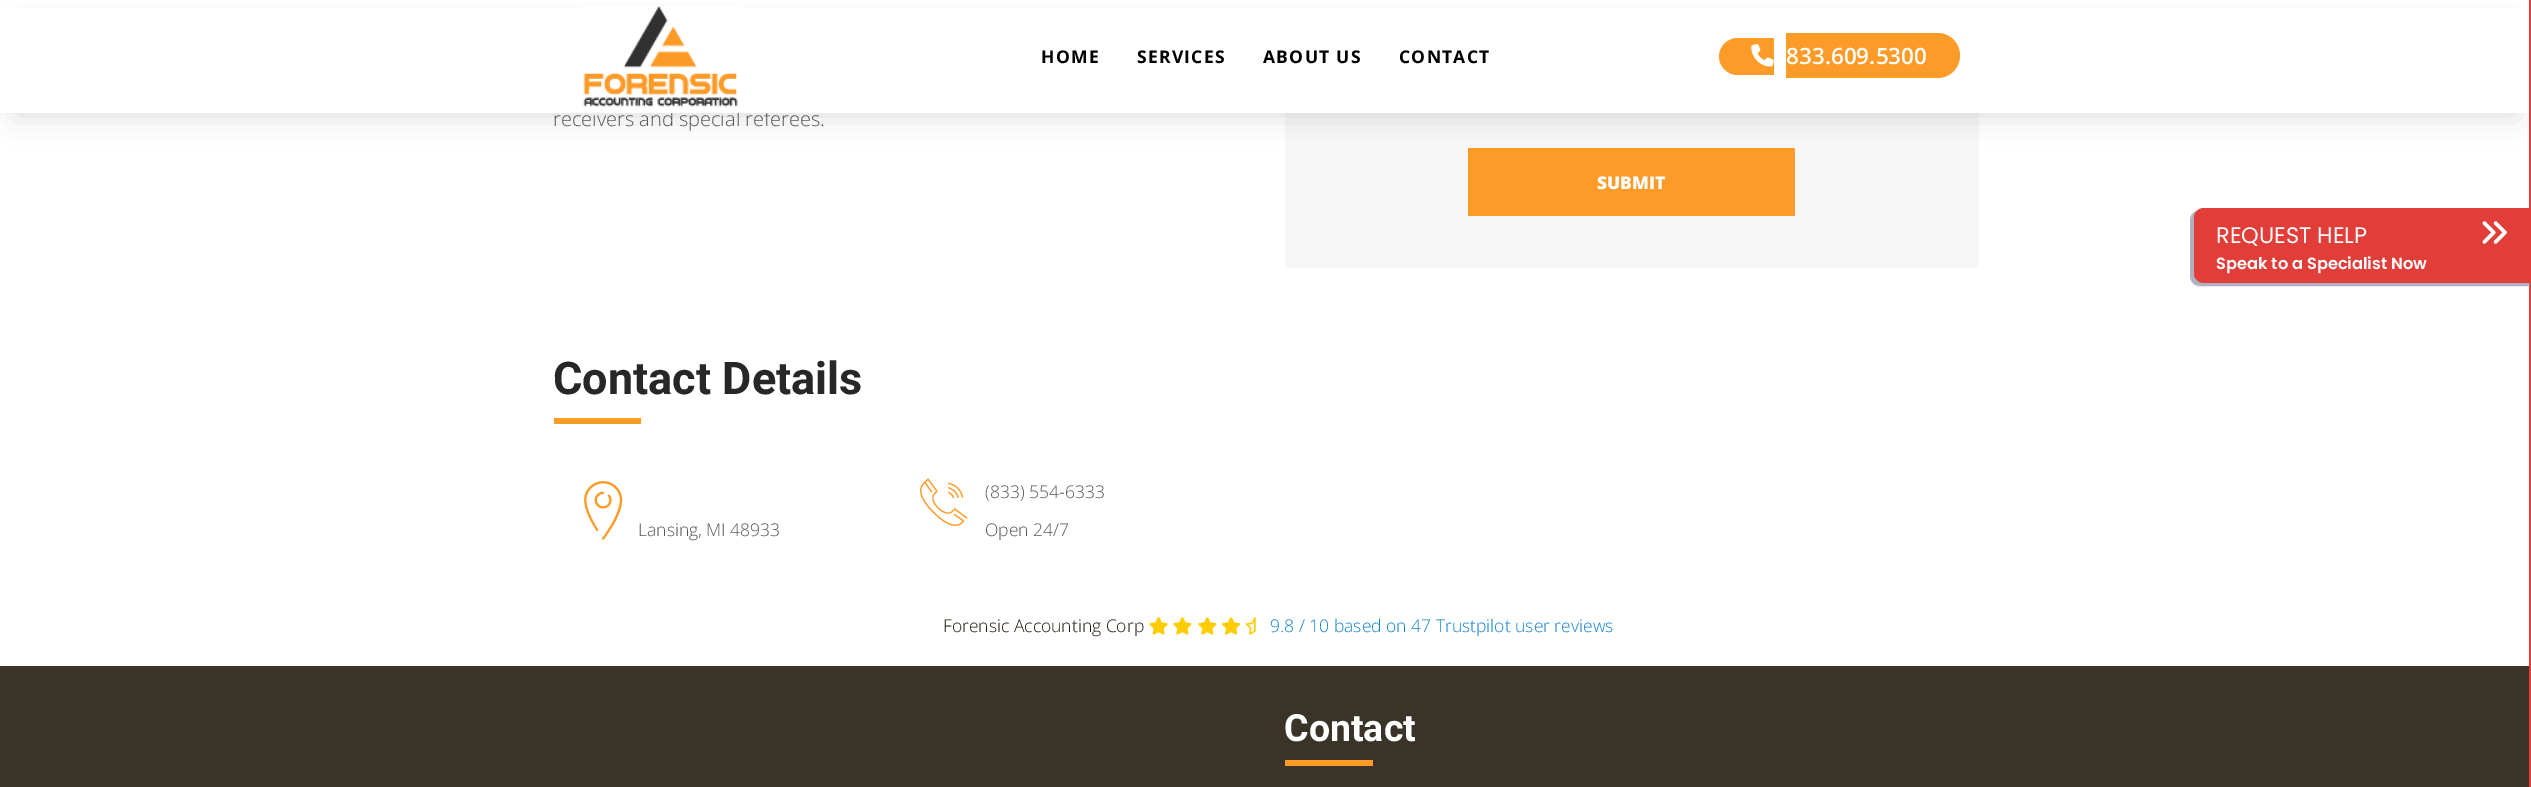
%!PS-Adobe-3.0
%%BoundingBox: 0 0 2531 787
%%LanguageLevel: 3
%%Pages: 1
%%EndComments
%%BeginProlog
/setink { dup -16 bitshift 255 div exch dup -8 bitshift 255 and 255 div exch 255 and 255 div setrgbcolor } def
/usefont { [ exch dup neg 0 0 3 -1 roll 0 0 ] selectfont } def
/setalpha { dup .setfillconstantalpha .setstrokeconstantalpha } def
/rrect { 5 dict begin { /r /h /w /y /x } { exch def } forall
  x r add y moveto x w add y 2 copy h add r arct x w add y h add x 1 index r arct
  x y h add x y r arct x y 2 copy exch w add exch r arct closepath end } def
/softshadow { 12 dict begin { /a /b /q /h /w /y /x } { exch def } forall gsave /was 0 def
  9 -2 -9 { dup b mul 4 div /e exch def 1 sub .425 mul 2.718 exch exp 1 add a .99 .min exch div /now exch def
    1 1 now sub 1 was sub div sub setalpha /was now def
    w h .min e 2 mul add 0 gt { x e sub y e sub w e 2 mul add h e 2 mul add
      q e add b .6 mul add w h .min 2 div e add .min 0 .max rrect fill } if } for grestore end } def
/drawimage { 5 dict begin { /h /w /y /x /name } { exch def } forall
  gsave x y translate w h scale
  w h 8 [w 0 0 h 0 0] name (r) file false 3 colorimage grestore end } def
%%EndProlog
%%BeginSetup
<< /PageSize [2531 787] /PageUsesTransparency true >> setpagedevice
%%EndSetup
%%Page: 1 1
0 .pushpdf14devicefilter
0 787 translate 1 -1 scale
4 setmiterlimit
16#FFFFFF setink
0 0 2531 787 rectfill
16#F7F7F7 setink
1285 113 694 155 rectfill
16#FD9B28 setink
1468 148 327 68 rectfill
16#000000 setink
15 31 2501 83 0 15.5 0.15 softshadow
/OpenSans-Light 20 usefont
16#555555 setink
553 126 moveto (receivers and special referees.) show
16#FFFFFF setink
0 8 2529 105 rectfill
(img1.raw) 583 6 155 101 drawimage
/OpenSans-Bold 17.5 usefont
16#000000 setink
1041 63 moveto 1.25 0 (HOME) ashow
1137 63 moveto 1.25 0 (SERVICES) ashow
1263 63 moveto 1.25 0 (ABOUT US) ashow
1399 63 moveto 1.25 0 (CONTACT) ashow
16#FD9B28 setink
1737.5 38 moveto 1774 38 lineto 1774 75 lineto 1737.5 75 lineto 1727.5 75 1719 66.5 1719 56.5 curveto 1719 46.5 1727.5 38 1737.5 38 curveto closepath fill
1786 33 moveto 1937.5 33 lineto 1950 33 1960 43 1960 55.5 curveto 1960 68 1950 78 1937.5 78 curveto 1786 78 lineto closepath fill
(img2.raw) 1751 44 23 23 drawimage
/OpenSans-SemiBold 22.5 usefont
16#FFFFFF setink
1786 64 moveto (833.609.5300) show
/OpenSans-ExtraBold 17.5 usefont
1597 189 moveto (SUBMIT) show
/Roboto-Bold 45 usefont
16#272727 setink
553 394 moveto (Contact Details) show
16#FD9B28 setink
554 418 87 6 rectfill
(img3.raw) 584 481 39 59 drawimage
/OpenSans-Light 17.5 usefont
16#555555 setink
638 536 moveto (Lansing, MI 48933) show
(img4.raw) 920 478 48 48 drawimage
985 498 moveto (\(833\) 554-6333) show
985 536 moveto (Open 24/7) show
16#211A0F setink
943 632 moveto (Forensic Accounting Corp) show
(img5.raw) 1149 617 19 18 drawimage
(img6.raw) 1173 617 19 18 drawimage
(img6.raw) 1198 617 19 18 drawimage
(img7.raw) 1222 617 19 18 drawimage
(img8.raw) 1245 617 11 18 drawimage
16#0D81CE setink
1270 632 moveto (9.8 / 10 based on 47 Trustpilot user reviews) show
16#3A3328 setink
0 666 2529 121 rectfill
/Roboto-Bold 37.5 usefont
16#FFFFFF setink
1284 741 moveto (Contact) show
16#FD9B28 setink
1285 760 88 6 rectfill
16#E13D39 setink
2529 0 2 787 rectfill
(img9.raw) 2190 209 341 78 drawimage
2204 208 moveto 2531 208 lineto 2531 283 lineto 2204 283 lineto 2198.5 283 2194 278.5 2194 273 curveto 2194 218 lineto 2194 212.5 2198.5 208 2204 208 curveto closepath fill
/Poppins-Regular 22.5 usefont
16#FFFFFF setink
2216 243 moveto (REQUEST HELP) show
(img10.raw) 2482 221 25 23 drawimage
/Poppins-SemiBold 16.25 usefont
2216 269 moveto (Speak to a Specialist Now) show
.poppdf14devicefilter showpage
%%EOF
